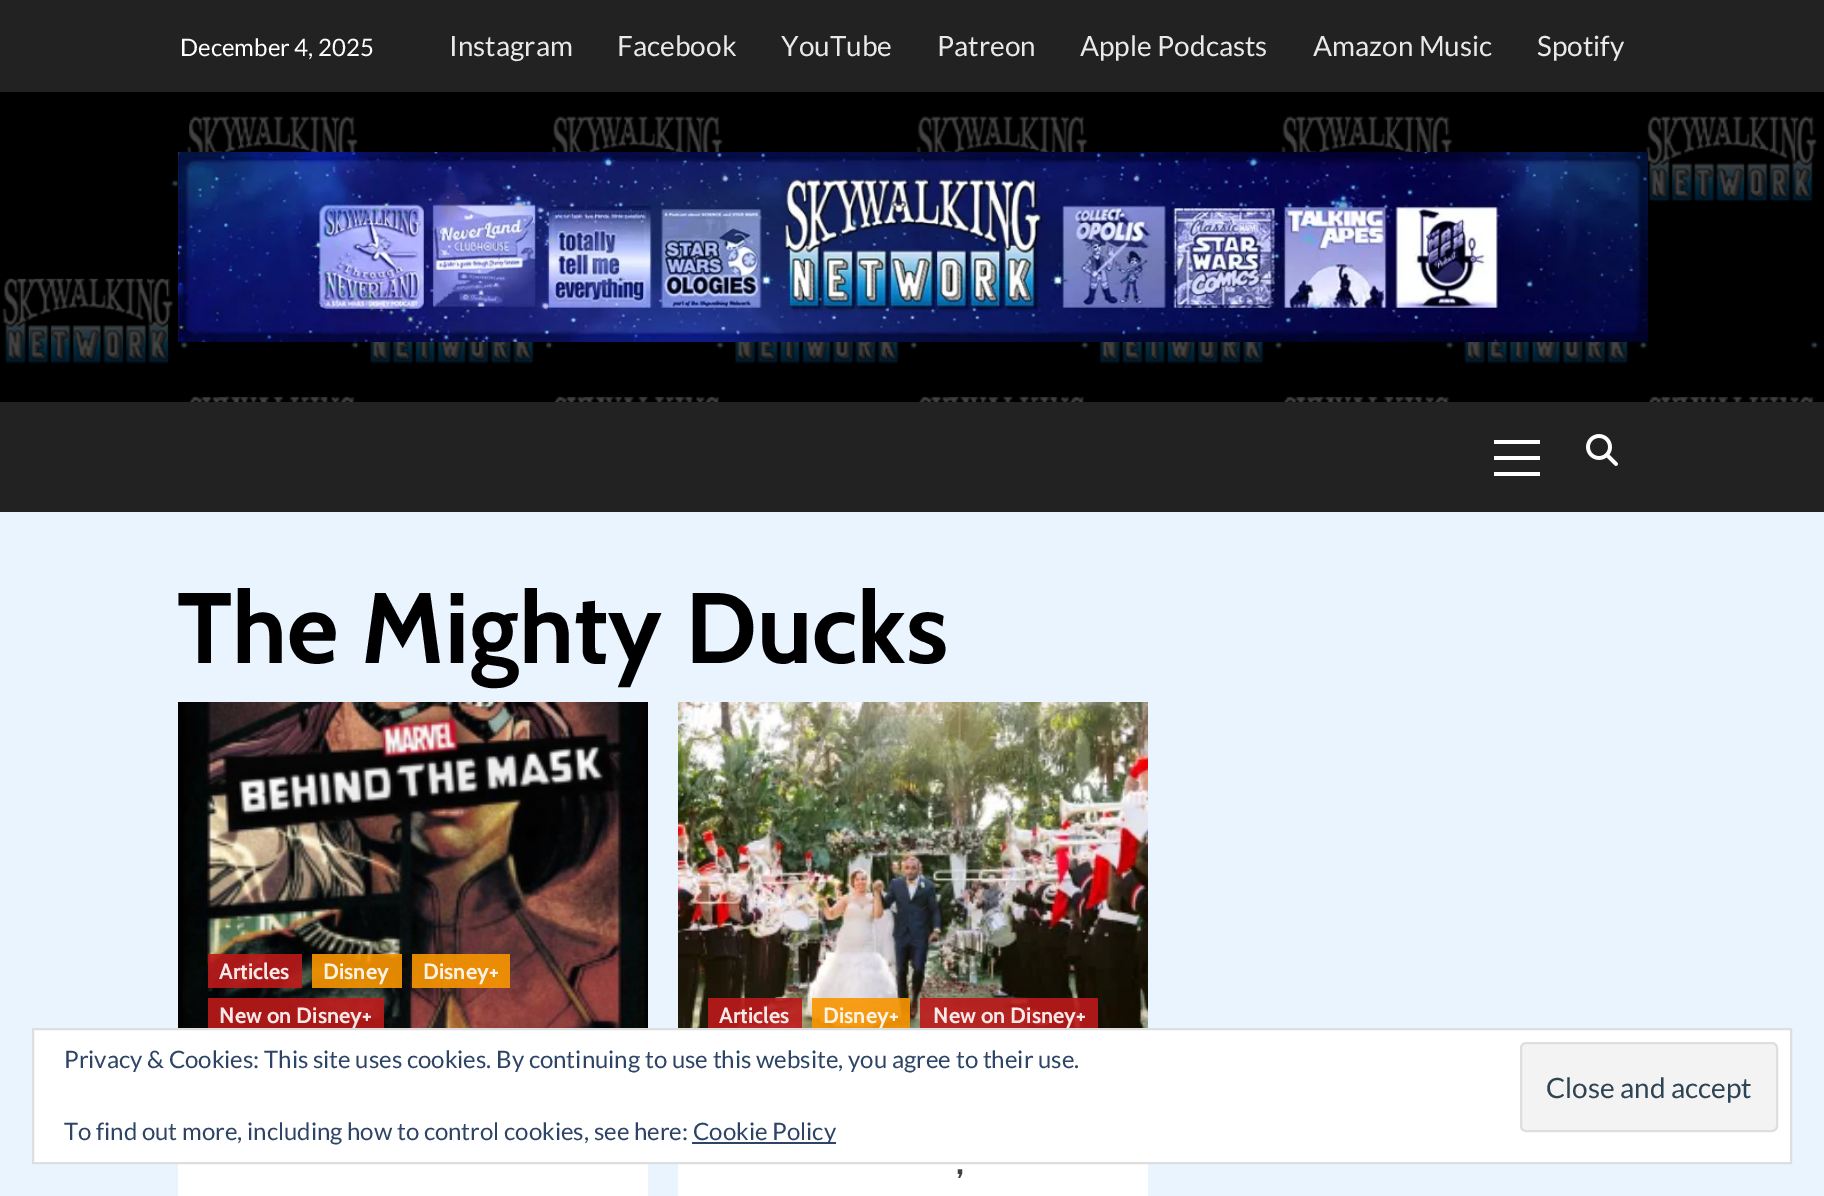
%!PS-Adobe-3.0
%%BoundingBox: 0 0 1824 1196
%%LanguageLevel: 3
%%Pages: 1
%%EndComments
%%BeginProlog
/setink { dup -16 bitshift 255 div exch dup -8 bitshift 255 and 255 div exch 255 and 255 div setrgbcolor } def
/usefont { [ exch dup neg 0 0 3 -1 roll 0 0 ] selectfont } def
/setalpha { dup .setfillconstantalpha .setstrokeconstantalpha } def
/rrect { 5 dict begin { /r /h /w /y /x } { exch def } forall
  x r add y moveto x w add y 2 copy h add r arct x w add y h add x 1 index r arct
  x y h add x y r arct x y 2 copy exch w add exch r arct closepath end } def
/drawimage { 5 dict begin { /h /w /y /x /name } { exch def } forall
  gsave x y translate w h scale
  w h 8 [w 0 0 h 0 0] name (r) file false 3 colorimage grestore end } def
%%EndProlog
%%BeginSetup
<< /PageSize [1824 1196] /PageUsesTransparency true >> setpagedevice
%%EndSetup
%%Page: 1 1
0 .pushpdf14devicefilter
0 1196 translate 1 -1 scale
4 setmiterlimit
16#EAF4FF setink
0 0 1824 1196 rectfill
16#222222 setink
0 0 1824 92 rectfill
/Lato-Regular 24 usefont
16#FFFFFF setink
180 56 moveto (December 4, 2025) show
/Lato-Regular 28 usefont
16#E9E9E9 setink
[
    [(Instagram) 449 56]
    [(Facebook) 617 56]
    [(YouTube) 781 56]
    [(Patreon) 937 56]
    [(Apple Podcasts) 1080 56]
    [(Amazon Music) 1313 56]
    [(Spotify) 1537 56]
] { aload pop moveto show } forall
(img1.raw) 0 92 1824 310 drawimage
(img2.raw) 178 152 1470 190 drawimage
[
    [0 402 1824 110 16#222222]
    [1494 456 46 4 16#FFFFFF]
    [1494 440 46 4 16#FFFFFF]
    [1494 472 46 4 16#FFFFFF]
] { aload pop setink rectfill } forall
(img3.raw) 1586 434 32 32 drawimage
/Cabin-Bold 100 usefont
16#000000 setink
177 663 moveto (The Mighty Ducks) show
16#FFFFFF setink
178 1164 470 32 rectfill
(img4.raw) 178 702 470 326 drawimage
0.9 setalpha
16#BB1919 setink
208 954 94 34 rectfill
/Cabin-Bold 22 usefont
1 setalpha
16#F7E8E8 setink
219 979 moveto (Articles) show
0.9 setalpha
16#F99500 setink
312 954 90 34 rectfill
1 setalpha
16#FCF3E6 setink
323 979 moveto (Disney) show
0.9 setalpha
16#F99500 setink
412 954 98 34 rectfill
1 setalpha
16#FCF3E6 setink
423 979 moveto (Disney+) show
0.9 setalpha
16#BB1919 setink
208 998 176 30 rectfill
1 setalpha
16#F7E8E8 setink
219 1023 moveto (New on Disney+) show
16#FFFFFF setink
678 1164 470 32 rectfill
(img5.raw) 678 702 470 326 drawimage
0.9 setalpha
16#BB1919 setink
708 998 94 30 rectfill
1 setalpha
16#F7E8E8 setink
719 1023 moveto (Articles) show
0.9 setalpha
16#F99500 setink
812 998 98 30 rectfill
1 setalpha
16#FCF3E6 setink
823 1023 moveto (Disney+) show
0.9 setalpha
16#BB1919 setink
920 998 178 30 rectfill
1 setalpha
16#F7E8E8 setink
933 1023 moveto (New on Disney+) show
/Cabin-Bold 34 usefont
16#404040 setink
956 1174 moveto (,) show
16#FFFFFF setink
33 1029 moveto 1791 1029 lineto 1791 1163 lineto 33 1163 lineto closepath gsave fill grestore
16#DEDEDE setink
2 setlinewidth
stroke
/Lato-Regular 24 usefont
16#2E4467 setink
64 1068 moveto (Privacy & Cookies: This site uses cookies. By continuing to use this website, you agree to their use.) show
16#F3F3F3 setink
1521 1043 256 88 5 rrect gsave fill grestore
16#DEDEDE setink
stroke
/Lato-Regular 28 usefont
16#2E4453 setink
1546 1098 moveto (Close and accept) show
/Lato-Regular 24 usefont
16#2E4467 setink
64 1140 moveto (To find out more, including how to control cookies, see here:) show
692 1142 144 2 rectfill
693 1140 moveto (Cookie Policy) show
.poppdf14devicefilter showpage
%%EOF
